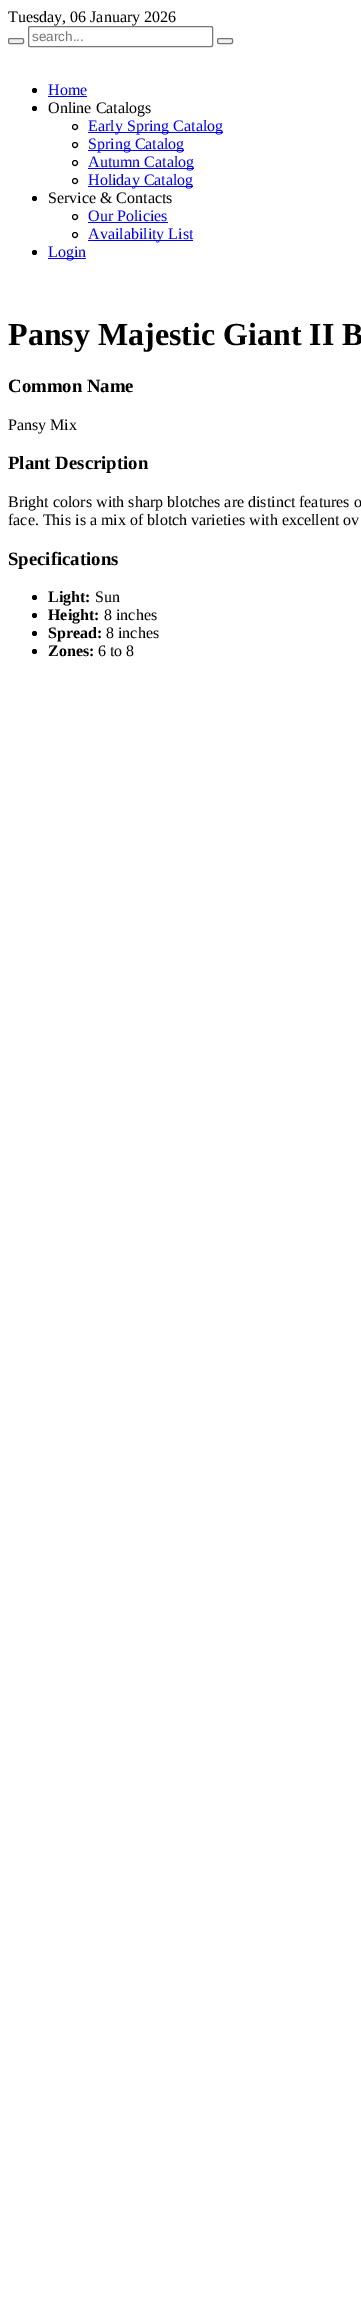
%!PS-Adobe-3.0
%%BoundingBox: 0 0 361 2305
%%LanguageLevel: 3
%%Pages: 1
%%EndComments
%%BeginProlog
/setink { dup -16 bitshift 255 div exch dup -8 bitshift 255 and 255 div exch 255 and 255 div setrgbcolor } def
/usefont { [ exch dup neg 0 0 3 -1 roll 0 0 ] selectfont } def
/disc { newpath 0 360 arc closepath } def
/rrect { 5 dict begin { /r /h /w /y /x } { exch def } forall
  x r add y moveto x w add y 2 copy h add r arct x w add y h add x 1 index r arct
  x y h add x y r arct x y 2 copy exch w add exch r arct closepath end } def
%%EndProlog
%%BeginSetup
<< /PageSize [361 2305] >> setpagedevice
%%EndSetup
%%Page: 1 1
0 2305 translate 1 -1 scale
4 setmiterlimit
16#FFFFFF setink
0 0 361 2305 rectfill
/LiberationSerif-Regular 16 usefont
16#000000 setink
8 22 moveto (Tuesday, 06 January 2026) show
16#EFEFEF setink
8.5 38.5 15 5 1.5 rrect gsave fill grestore
16#767676 setink
stroke
28.5 26.5 184 20 1.5 rrect stroke
/LiberationSans-Regular 13.5 usefont
16#757575 setink
32 41 moveto (search...) show
16#EFEFEF setink
217.5 38.5 15 5 1.5 rrect gsave fill grestore
16#767676 setink
stroke
16#000000 setink
34.5 90.5 2.5 disc fill
/LiberationSerif-Regular 16 usefont
16#0000EE setink
48 95 moveto (Home) show
48 96 39 1 rectfill
16#000000 setink
34.5 108.5 2.5 disc fill
48 113 moveto (Online Catalogs) show
75 127 2.5 disc stroke
16#0000EE setink
88 132 135 1 rectfill
88 131 moveto (Early Spring Catalog) show
16#000000 setink
75 145 2.5 disc stroke
16#0000EE setink
88 150 96 1 rectfill
88 149 moveto (Spring Catalog) show
16#000000 setink
75 163 2.5 disc stroke
16#0000EE setink
88 168 106 1 rectfill
88 167 moveto (Autumn Catalog) show
16#000000 setink
75 181 2.5 disc stroke
16#0000EE setink
88 186 105 1 rectfill
88 185 moveto (Holiday Catalog) show
16#000000 setink
34.5 198.5 2.5 disc fill
48 203 moveto (Service & Contacts) show
75 217 2.5 disc stroke
16#0000EE setink
88 221 moveto (Our Policies) show
88 222 80 1 rectfill
16#000000 setink
75 235 2.5 disc stroke
16#0000EE setink
88 240 105 1 rectfill
88 239 moveto (Availability List) show
16#000000 setink
34.5 252.5 2.5 disc fill
16#0000EE setink
48 258 38 1 rectfill
48 257 moveto (Login) show
/LiberationSerif-Bold 32 usefont
16#000000 setink
8 345 moveto (Pansy Majestic Giant II B) show
/LiberationSerif-Bold 18.75 usefont
8 392 moveto (Common Name) show
/LiberationSerif-Regular 16 usefont
8 430 moveto (Pansy Mix) show
/LiberationSerif-Bold 18.75 usefont
8 469 moveto (Plant Description) show
/LiberationSerif-Regular 16 usefont
8 507 moveto (Bright colors with sharp blotches are distinct features o) show
8 525 moveto (face. This is a mix of blotch varieties with excellent ov) show
/LiberationSerif-Bold 18.75 usefont
8 565 moveto (Specifications) show
34.5 597.5 2.5 disc fill
/LiberationSerif-Bold 16 usefont
48 602 moveto (Light:) show
/LiberationSerif-Regular 16 usefont
95 602 moveto (Sun) show
34.5 615.5 2.5 disc fill
/LiberationSerif-Bold 16 usefont
48 620 moveto (Height:) show
/LiberationSerif-Regular 16 usefont
104 620 moveto (8 inches) show
34.5 633.5 2.5 disc fill
/LiberationSerif-Bold 16 usefont
48 638 moveto (Spread:) show
/LiberationSerif-Regular 16 usefont
106 638 moveto (8 inches) show
34.5 651.5 2.5 disc fill
/LiberationSerif-Bold 16 usefont
48 656 moveto (Zones:) show
/LiberationSerif-Regular 16 usefont
98 656 moveto (6 to 8) show
showpage
%%EOF
